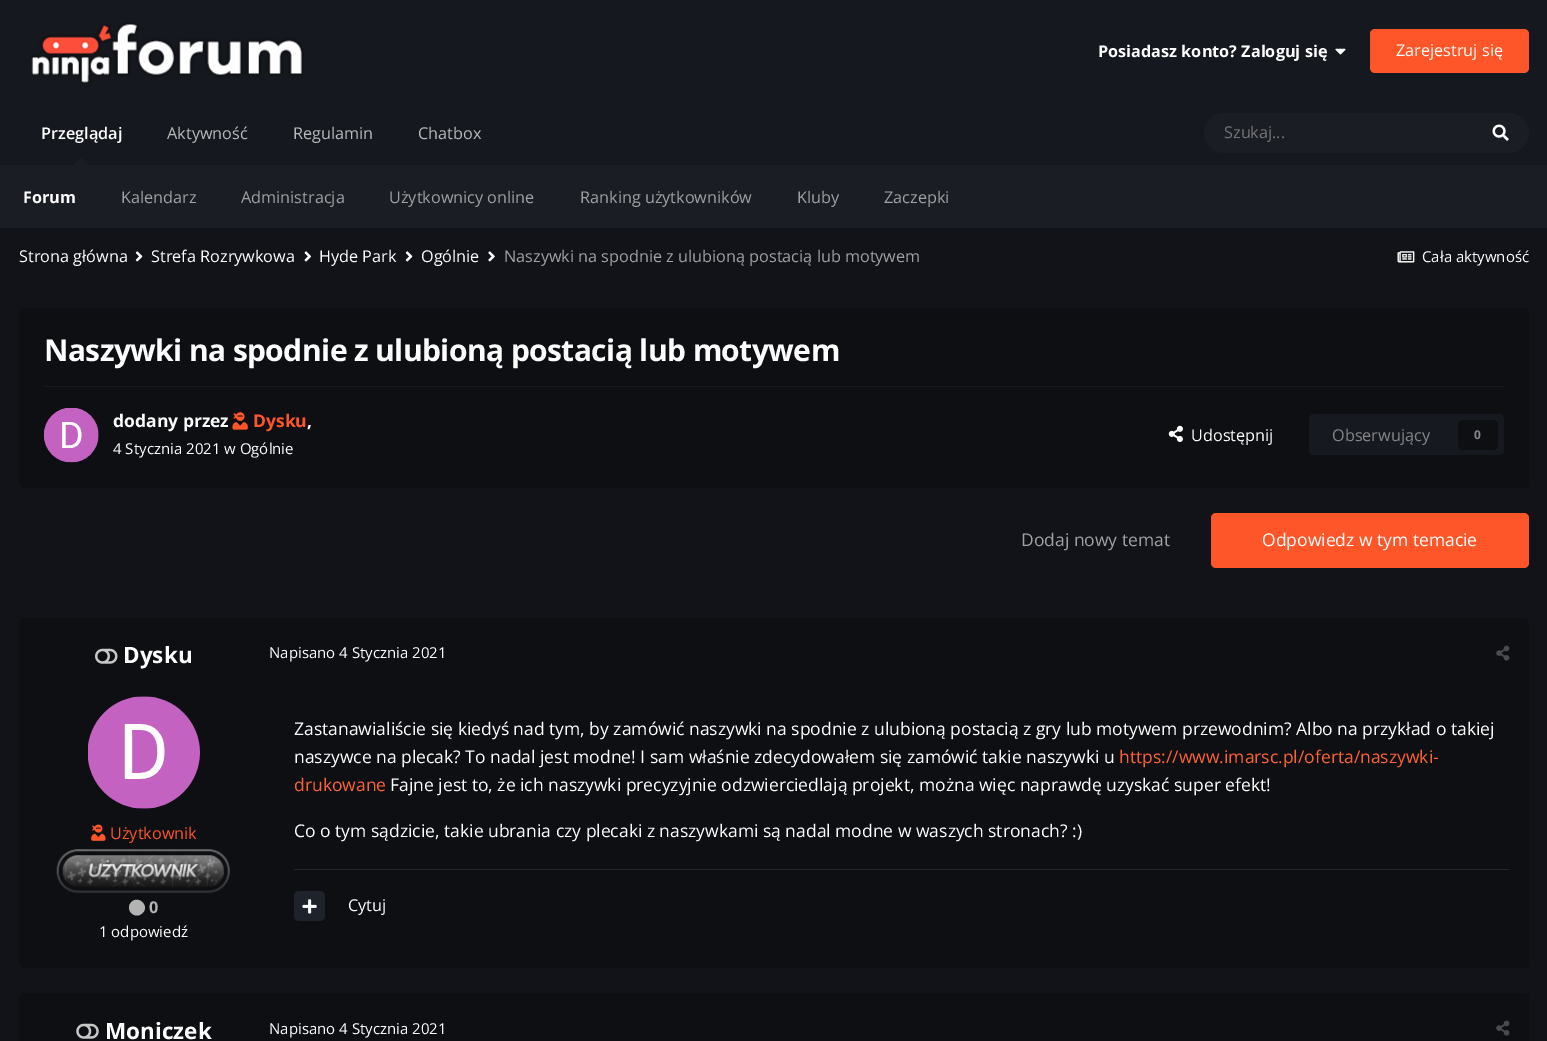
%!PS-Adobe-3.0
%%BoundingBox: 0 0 1547 1041
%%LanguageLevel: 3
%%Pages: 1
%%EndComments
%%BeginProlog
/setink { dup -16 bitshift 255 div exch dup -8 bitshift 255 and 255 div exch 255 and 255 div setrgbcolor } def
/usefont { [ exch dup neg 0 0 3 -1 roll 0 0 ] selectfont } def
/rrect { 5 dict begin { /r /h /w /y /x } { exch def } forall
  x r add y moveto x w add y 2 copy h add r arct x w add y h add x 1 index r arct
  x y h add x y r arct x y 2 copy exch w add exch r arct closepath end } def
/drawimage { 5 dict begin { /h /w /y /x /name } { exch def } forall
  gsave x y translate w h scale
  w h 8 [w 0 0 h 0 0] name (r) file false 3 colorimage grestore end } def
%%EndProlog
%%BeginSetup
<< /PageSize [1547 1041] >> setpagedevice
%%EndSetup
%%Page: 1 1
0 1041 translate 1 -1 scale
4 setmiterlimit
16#111318 setink
0 0 1547 1041 rectfill
16#15181E setink
0 0 1547 165 rectfill
(img1.raw) 30 22 274 62 drawimage
/OpenSans-Bold 16.25 usefont
16#FFFFFF setink
1098 57 moveto (Posiadasz konto? Zaloguj się) show
(img2.raw) 1335 48 11 7 drawimage
16#FF5629 setink
1370 29 159 44 5 rrect fill
/OpenSans-Regular 16.25 usefont
16#FFFFFF setink
1396 56 moveto (Zarejestruj się) show
/OpenSans-SemiBold 16.25 usefont
41 139 moveto (Przeglądaj) show
16#1A1D24 setink
89 165 moveto 74 165 lineto 81 157.5 lineto closepath fill
0 165 1547 63 rectfill
/OpenSans-Bold 16.25 usefont
16#FFFFFF setink
23 203 moveto (Forum) show
/OpenSans-Regular 16.25 usefont
16#A0A1A3 setink
[
    [(Kalendarz) 121 203]
    [(Administracja) 241 203]
    [(Użytkownicy online) 389 203]
    [(Ranking użytkowników) 580 203]
    [(Kluby) 797 203]
    [(Zaczepki) 884 203]
] { aload pop moveto show } forall
16#B9BABC setink
[
    [(Aktywność) 167 139]
    [(Regulamin) 293 139]
    [(Chatbox) 418 139]
] { aload pop moveto show } forall
16#1A1D24 setink
1204 113 325 40 20 rrect fill
16#757575 setink
1224 138 moveto (Szukaj...) show
(img3.raw) 1492 124 17 17 drawimage
16#FFFFFF setink
19 262 moveto (Strona główna) show
(img4.raw) 135 251 8 11 drawimage
151 262 moveto (Strefa Rozrywkowa) show
(img5.raw) 304 251 7 11 drawimage
319 262 moveto (Hyde Park) show
(img4.raw) 405 251 8 11 drawimage
421 262 moveto (Ogólnie) show
(img6.raw) 488 251 7 11 drawimage
16#A0A1A3 setink
504 262 moveto (Naszywki na spodnie z ulubioną postacią lub motywem) show
(img7.raw) 1397 251 18 12 drawimage
/OpenSans-Regular 15 usefont
16#FFFFFF setink
1422 262 moveto (Cała aktywność) show
16#0D0F13 setink
19 308 1510 180 6 rrect fill
/OpenSans-Bold 30 usefont
16#FFFFFF setink
44 361 moveto -0.6 0 (Naszywki na spodnie z ulubioną postacią lub motywem) ashow
16#151920 setink
44 386 1460 1 rectfill
(img8.raw) 44 408 55 55 drawimage
/OpenSans-Bold 17.5 usefont
16#FFFFFF setink
113 427 moveto (dodany przez) show
(img9.raw) 232 412 16 18 drawimage
16#FF5629 setink
253 427 moveto (Dysku) show
16#FFFFFF setink
307 427 moveto (,) show
/OpenSans-Regular 15 usefont
113 454 moveto (4 Stycznia 2021 w Ogólnie) show
(img10.raw) 1168 425 15 17 drawimage
/OpenSans-Regular 16.25 usefont
1191 441 moveto (Udostępnij) show
16#16191F setink
1309 414 195 41 5 rrect fill
16#868789 setink
1332 441 moveto (Obserwujący) show
16#0D0F13 setink
1458 420 40 30 5 rrect fill
/OpenSans-Bold 12 usefont
16#868789 setink
1474 439 moveto (0) show
/OpenSans-Regular 17.5 usefont
16#A0A1A3 setink
1021 546 moveto (Dodaj nowy temat) show
16#FF5629 setink
1211 513 318 55 5 rrect fill
16#FFFFFF setink
1262 546 moveto (Odpowiedz w tym temacie) show
16#0D0F13 setink
19 618 1510 350 6 rrect fill
(img11.raw) 95 648 23 16 drawimage
/OpenSans-Bold 22.5 usefont
16#FFFFFF setink
123 663 moveto (Dysku) show
(img12.raw) 88 696 112 113 drawimage
(img13.raw) 91 824 15 17 drawimage
/OpenSans-Regular 16.25 usefont
16#FF5629 setink
110 839 moveto (Użytkownik) show
(img14.raw) 56 849 174 45 drawimage
16#B3B3B3 setink
131.5 902 moveto 138.5 895 150 906 142.5 913 curveto 135 920.5 124 909.5 131.5 902 curveto closepath fill
/OpenSans-Bold 16.25 usefont
149 913 moveto (0) show
/OpenSans-Regular 15 usefont
16#FFFFFF setink
99 937 moveto (1 odpowiedź) show
269 658 moveto (Napisano 4 Stycznia 2021) show
(img15.raw) 1496 645 14 16 drawimage
/OpenSans-Regular 17.5 usefont
294 735 moveto (Zastanawialiście się kiedyś nad tym, by zamówić naszywki na spodnie z ulubioną postacią z gry lub motywem przewodnim? Albo na przykład o takiej) show
294 763 moveto (naszywce na plecak? To nadal jest modne! I sam właśnie zdecydowałem się zamówić takie naszywki u) show
16#FF6236 setink
1119 763 moveto (https://www.imarsc.pl/oferta/naszywki-) show
294 791 moveto (drukowane) show
16#FFFFFF setink
390 791 moveto (Fajne jest to, że ich naszywki precyzyjnie odzwierciedlają projekt, można więc naprawdę uzyskać super efekt!) show
294 837 moveto (Co o tym sądzicie, takie ubrania czy plecaki z naszywkami są nadal modne w waszych stronach? :\)) show
16#25272B setink
294 869 1215 1 rectfill
16#1E222A setink
294 891 31 30 5 rrect fill
(img16.raw) 302 899 15 15 drawimage
/OpenSans-Regular 16.25 usefont
16#FFFFFF setink
348 911 moveto (Cytuj) show
16#0D0F13 setink
19 993 1510 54 6 rrect fill
(img17.raw) 76 1023 23 16 drawimage
/OpenSans-Bold 22.5 usefont
16#FFFFFF setink
105 1039 moveto (Moniczek) show
/OpenSans-Regular 15 usefont
269 1034 moveto (Napisano 4 Stycznia 2021) show
(img15.raw) 1496 1020 14 16 drawimage
showpage
%%EOF
